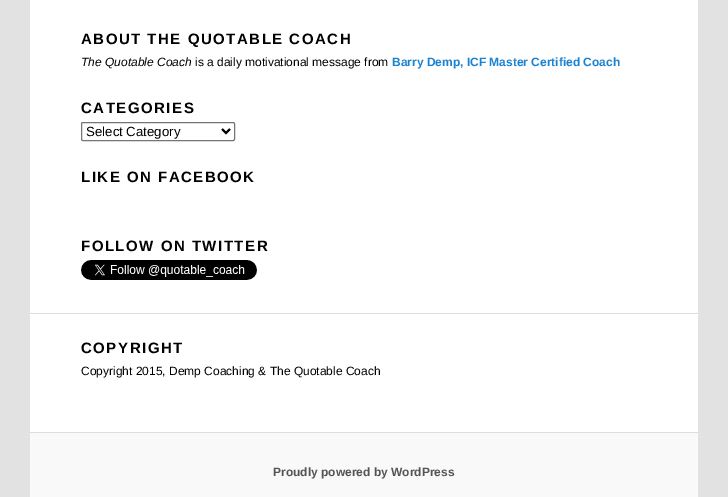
%!PS-Adobe-3.0
%%BoundingBox: 0 0 728 497
%%LanguageLevel: 3
%%Pages: 1
%%EndComments
%%BeginProlog
/setink { dup -16 bitshift 255 div exch dup -8 bitshift 255 and 255 div exch 255 and 255 div setrgbcolor } def
/usefont { [ exch dup neg 0 0 3 -1 roll 0 0 ] selectfont } def
/rrect { 5 dict begin { /r /h /w /y /x } { exch def } forall
  x r add y moveto x w add y 2 copy h add r arct x w add y h add x 1 index r arct
  x y h add x y r arct x y 2 copy exch w add exch r arct closepath end } def
/drawimage { 5 dict begin { /h /w /y /x /name } { exch def } forall
  gsave x y translate w h scale
  w h 8 [w 0 0 h 0 0] name (r) file false 3 colorimage grestore end } def
%%EndProlog
%%BeginSetup
<< /PageSize [728 497] >> setpagedevice
%%EndSetup
%%Page: 1 1
0 497 translate 1 -1 scale
4 setmiterlimit
16#E2E2E2 setink
0 0 728 497 rectfill
16#FFFFFF setink
30 0 668 432 rectfill
/LiberationSans-Bold 15 usefont
16#000000 setink
81 44 moveto 1.5 0 (ABOUT THE QUOTABLE COACH) ashow
/LiberationSans-Italic 12 usefont
81 66 moveto (The Quotable Coach) show
/LiberationSans-Regular 12 usefont
195 66 moveto (is a daily motivational message from) show
/LiberationSans-Bold 12 usefont
16#1982D1 setink
392 66 moveto (Barry Demp, ICF Master Certified Coach) show
/LiberationSans-Bold 15 usefont
16#000000 setink
81 113 moveto 1.5 0 (CATEGORIES) ashow
16#767676 setink
81.5 122.5 153 18 1.5 rrect stroke
16#000000 setink
2 setlinewidth
222 129 moveto 226 133 lineto 230 129 lineto stroke
/LiberationSans-Regular 13.25 usefont
86 136 moveto (Select Category) show
/LiberationSans-Bold 15 usefont
81 182 moveto 1.5 0 (LIKE ON FACEBOOK) ashow
81 251 moveto 1.5 0 (FOLLOW ON TWITTER) ashow
(img1.raw) 81 260 176 20 drawimage
16#DDDDDD setink
30 313 668 1 rectfill
16#000000 setink
81 353 moveto 1.5 0 (COPYRIGHT) ashow
/LiberationSans-Regular 12 usefont
81 375 moveto (Copyright 2015, Demp Coaching & The Quotable Coach) show
16#F9F9F9 setink
30 433 668 64 rectfill
16#DDDDDD setink
30 432 668 1 rectfill
/LiberationSans-Bold 12 usefont
16#555555 setink
273 476 moveto (Proudly powered by WordPress) show
showpage
%%EOF
